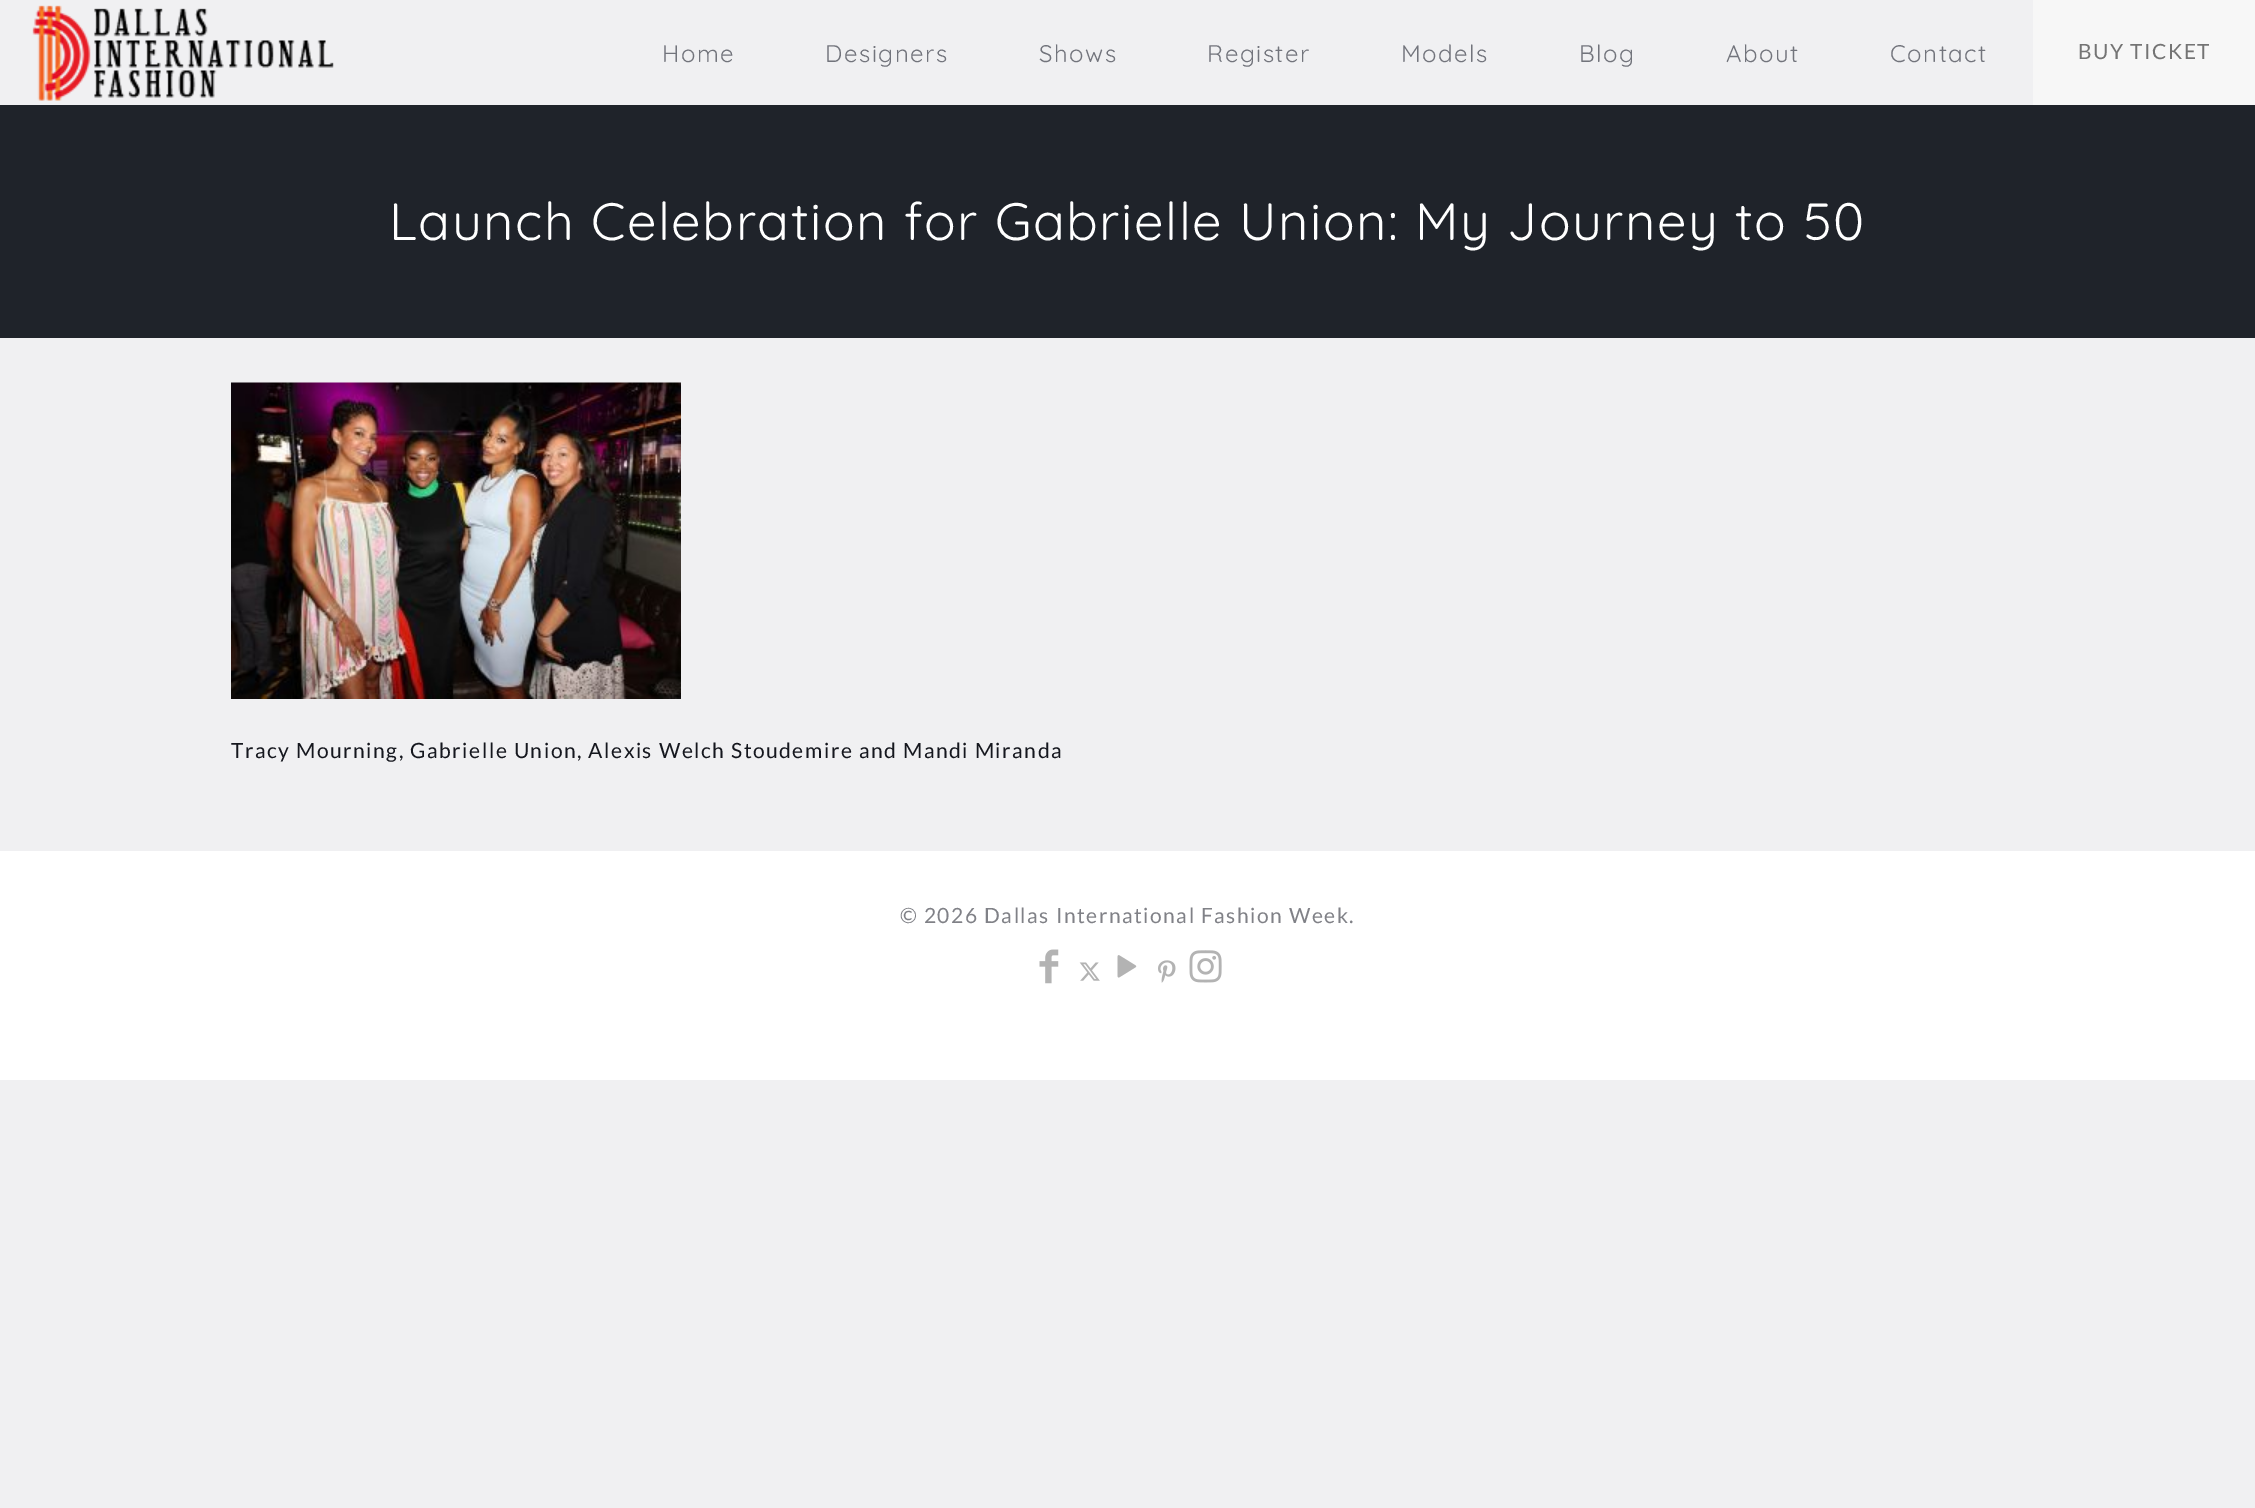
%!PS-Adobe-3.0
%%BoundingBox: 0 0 2255 1508
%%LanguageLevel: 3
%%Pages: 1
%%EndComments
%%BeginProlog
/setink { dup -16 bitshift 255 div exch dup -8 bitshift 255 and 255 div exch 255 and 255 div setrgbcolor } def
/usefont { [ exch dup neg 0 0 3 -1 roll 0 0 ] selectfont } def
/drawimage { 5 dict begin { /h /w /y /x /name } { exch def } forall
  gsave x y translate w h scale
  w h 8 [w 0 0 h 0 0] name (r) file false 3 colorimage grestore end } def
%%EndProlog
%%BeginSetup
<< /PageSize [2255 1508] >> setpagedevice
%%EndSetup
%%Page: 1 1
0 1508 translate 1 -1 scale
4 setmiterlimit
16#F0F0F2 setink
0 0 2255 1508 rectfill
16#1F232A setink
0 105 2255 233 rectfill
(img1.raw) 32 5 302 96 drawimage
/Quicksand-Regular 24 usefont
16#72747C setink
662 62 moveto 1.5 0 (Home) ashow
825 62 moveto 1.5 0 (Designers) ashow
1039 62 moveto 1.5 0 (Shows) ashow
1207 62 moveto 1.5 0 (Register) ashow
1401 62 moveto 1.5 0 (Models) ashow
1579 62 moveto 1.5 0 (Blog) ashow
1726 62 moveto 1.5 0 (About) ashow
1890 62 moveto 1.5 0 (Contact) ashow
16#F7F7F7 setink
2033 0 222 105 rectfill
/Lato-Regular 21 usefont
16#747474 setink
2078 59 moveto 1.5 0 (BUY TICKET) ashow
/Quicksand-Regular 52.5 usefont
16#FFFFFF setink
389 240 moveto 1.5 0 (Launch Celebration for Gabrielle Union: My Journey to 50) ashow
(img2.raw) 231 382 450 317 drawimage
/Lato-Regular 21 usefont
16#15171E setink
231 758 moveto 1.5 0 (Tracy Mourning, Gabrielle Union, Alexis Welch Stoudemire and Mandi Miranda) ashow
16#FFFFFF setink
0 851 2255 229 rectfill
16#808187 setink
900 923 moveto 1.5 0 (© 2026 Dallas International Fashion Week.) ashow
(img3.raw) 1039 949 20 35 drawimage
(img4.raw) 1079 962 21 19 drawimage
(img5.raw) 1117 955 20 23 drawimage
(img6.raw) 1158 960 18 23 drawimage
(img7.raw) 1189 950 33 33 drawimage
showpage
%%EOF
